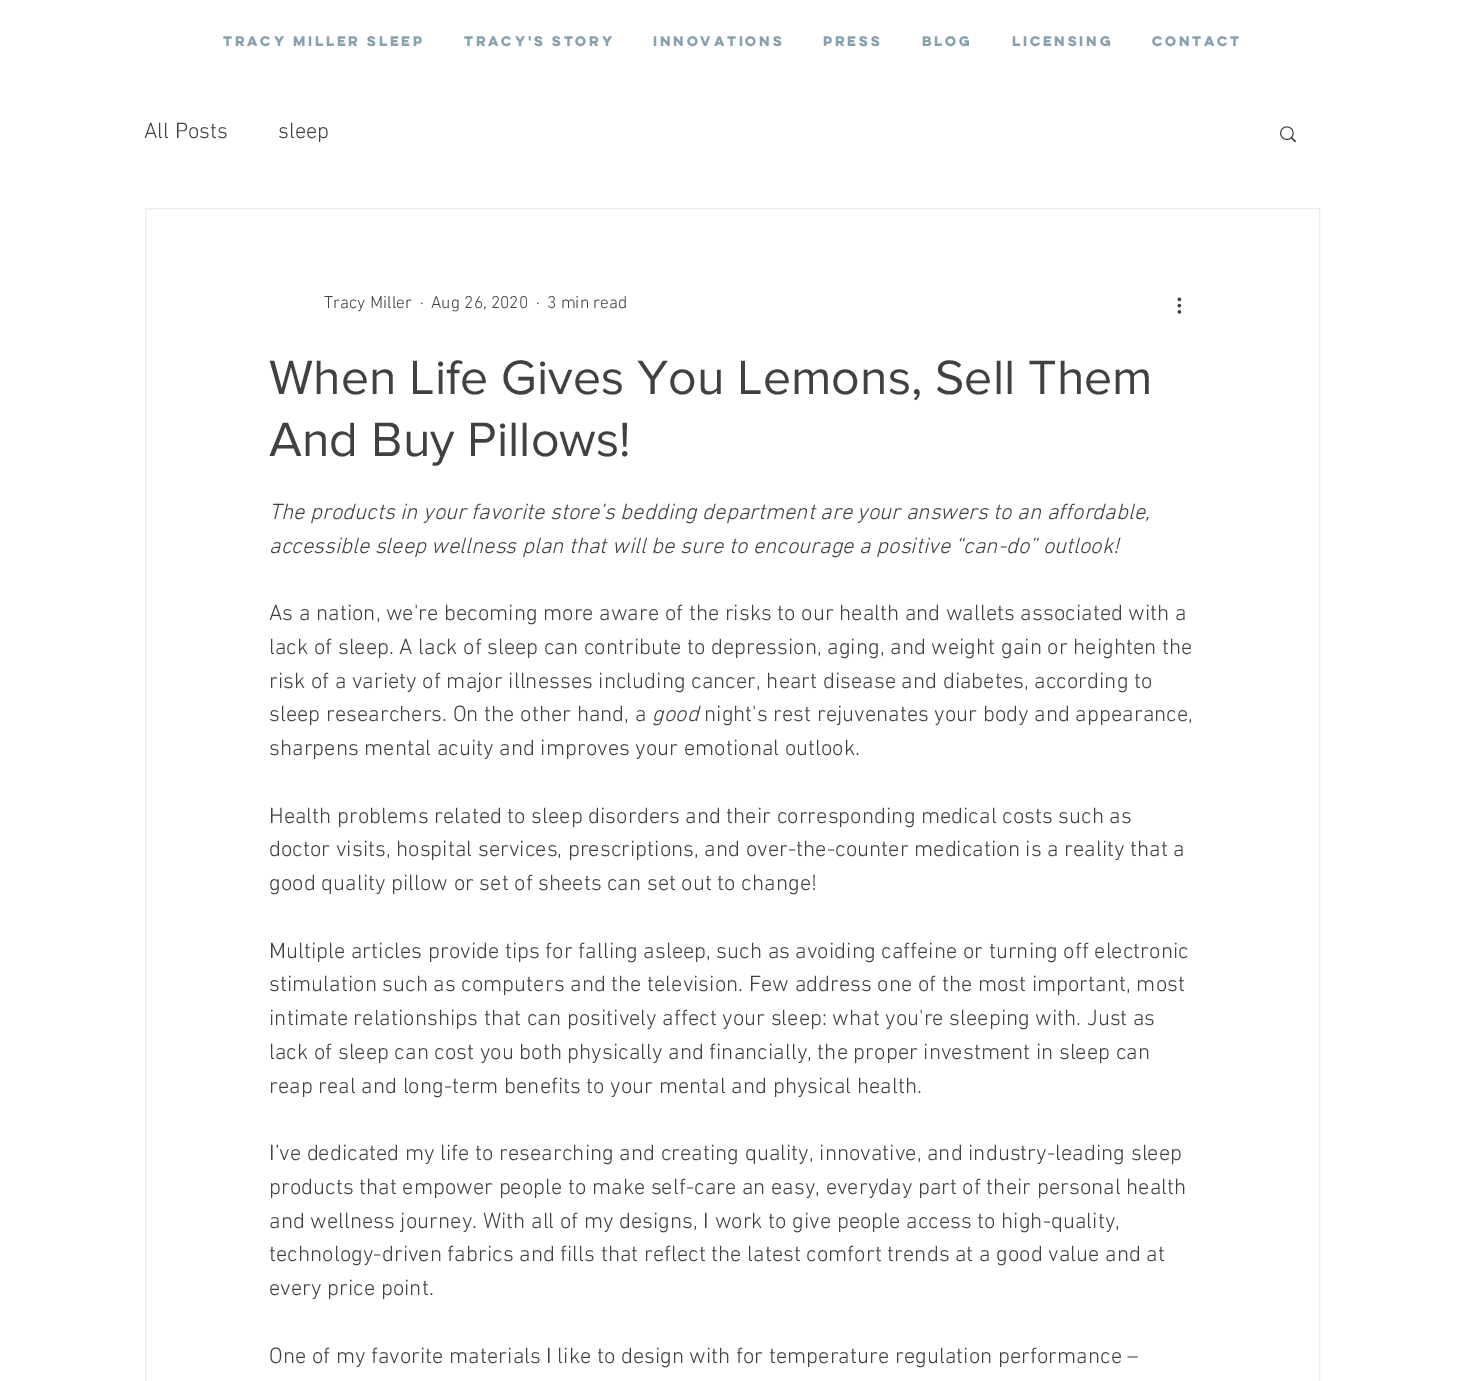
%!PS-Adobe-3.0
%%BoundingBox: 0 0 1463 1381
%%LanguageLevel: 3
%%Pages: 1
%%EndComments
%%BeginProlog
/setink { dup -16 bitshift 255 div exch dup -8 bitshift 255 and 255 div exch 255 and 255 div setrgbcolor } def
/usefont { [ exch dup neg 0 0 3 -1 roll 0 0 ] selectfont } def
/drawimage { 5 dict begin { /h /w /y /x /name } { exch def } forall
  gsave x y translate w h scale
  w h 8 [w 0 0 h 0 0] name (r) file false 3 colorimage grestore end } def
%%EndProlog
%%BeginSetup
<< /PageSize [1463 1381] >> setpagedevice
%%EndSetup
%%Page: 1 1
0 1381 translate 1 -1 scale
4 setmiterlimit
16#FFFFFF setink
0 0 1463 1381 rectfill
/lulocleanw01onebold-Bold 12.5 usefont
16#87A1B0 setink
[
    [(Tracy Miller Sleep) 223 46]
    [(Tracy's Story) 464 46]
    [(Innovations) 653 46]
    [(Press) 823 46]
    [(Blog) 922 46]
    [(Licensing) 1012 46]
    [(Contact) 1152 46]
] { aload pop moveto show } forall
/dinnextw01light-Light 22.5 usefont
16#414141 setink
144 138 moveto (All Posts) show
278 138 moveto (sleep) show
(img1.raw) 1280 126 17 17 drawimage
16#EEECEC setink
145.5 208.5 1174 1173 rectstroke
/dinnextw01light-Light 17.5 usefont
16#414141 setink
[
    [(Tracy Miller) 324 308]
    [(·) 420 308]
    [(Aug 26, 2020) 431 308]
    [(·) 536 308]
    [(3 min read) 547 308]
] { aload pop moveto show } forall
(img2.raw) 1177 297 5 17 drawimage
/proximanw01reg-Regular 50 usefont
269 394 moveto (When Life Gives You Lemons, Sell Them) show
269 456 moveto (And Buy Pillows!) show
/dinnextw01light-LightItalic 22.5 usefont
269 519 moveto (The products in your favorite store’s bedding department are your answers to an affordable,) show
269 553 moveto (accessible sleep wellness plan that will be sure to encourage a positive “can-do” outlook!) show
/dinnextw01light-Light 22.5 usefont
[
    [(As a nation, we're becoming more aware of the risks to our health and wallets associated with a) 269 620]
    [(lack of sleep. A lack of sleep can contribute to depression, aging, and weight gain or heighten the) 269 654]
    [(risk of a variety of major illnesses including cancer, heart disease and diabetes, according to) 269 688]
    [(sleep researchers. On the other hand, a) 269 721]
] { aload pop moveto show } forall
/dinnextw01light-LightItalic 22.5 usefont
652 721 moveto (good) show
/dinnextw01light-Light 22.5 usefont
[
    [(night's rest rejuvenates your body and appearance,) 704 721]
    [(sharpens mental acuity and improves your emotional outlook.) 269 755]
    [(Health problems related to sleep disorders and their corresponding medical costs such as) 269 823]
    [(doctor visits, hospital services, prescriptions, and over-the-counter medication is a reality that a) 269 856]
    [(good quality pillow or set of sheets can set out to change!) 269 890]
    [(Multiple articles provide tips for falling asleep, such as avoiding caffeine or turning off electronic) 269 958]
    [(stimulation such as computers and the television. Few address one of the most important, most) 269 991]
    [(intimate relationships that can positively affect your sleep: what you're sleeping with. Just as) 269 1025]
    [(lack of sleep can cost you both physically and financially, the proper investment in sleep can) 269 1059]
    [(reap real and long-term benefits to your mental and physical health.) 269 1093]
    [(I’ve dedicated my life to researching and creating quality, innovative, and industry-leading sleep) 269 1160]
    [(products that empower people to make self-care an easy, everyday part of their personal health) 269 1194]
    [(and wellness journey. With all of my designs, I work to give people access to high-quality,) 269 1228]
    [(technology-driven fabrics and fills that reflect the latest comfort trends at a good value and at) 269 1261]
    [(every price point.) 269 1295]
    [(One of my favorite materials I like to design with for temperature regulation performance –) 269 1363]
] { aload pop moveto show } forall
showpage
%%EOF
